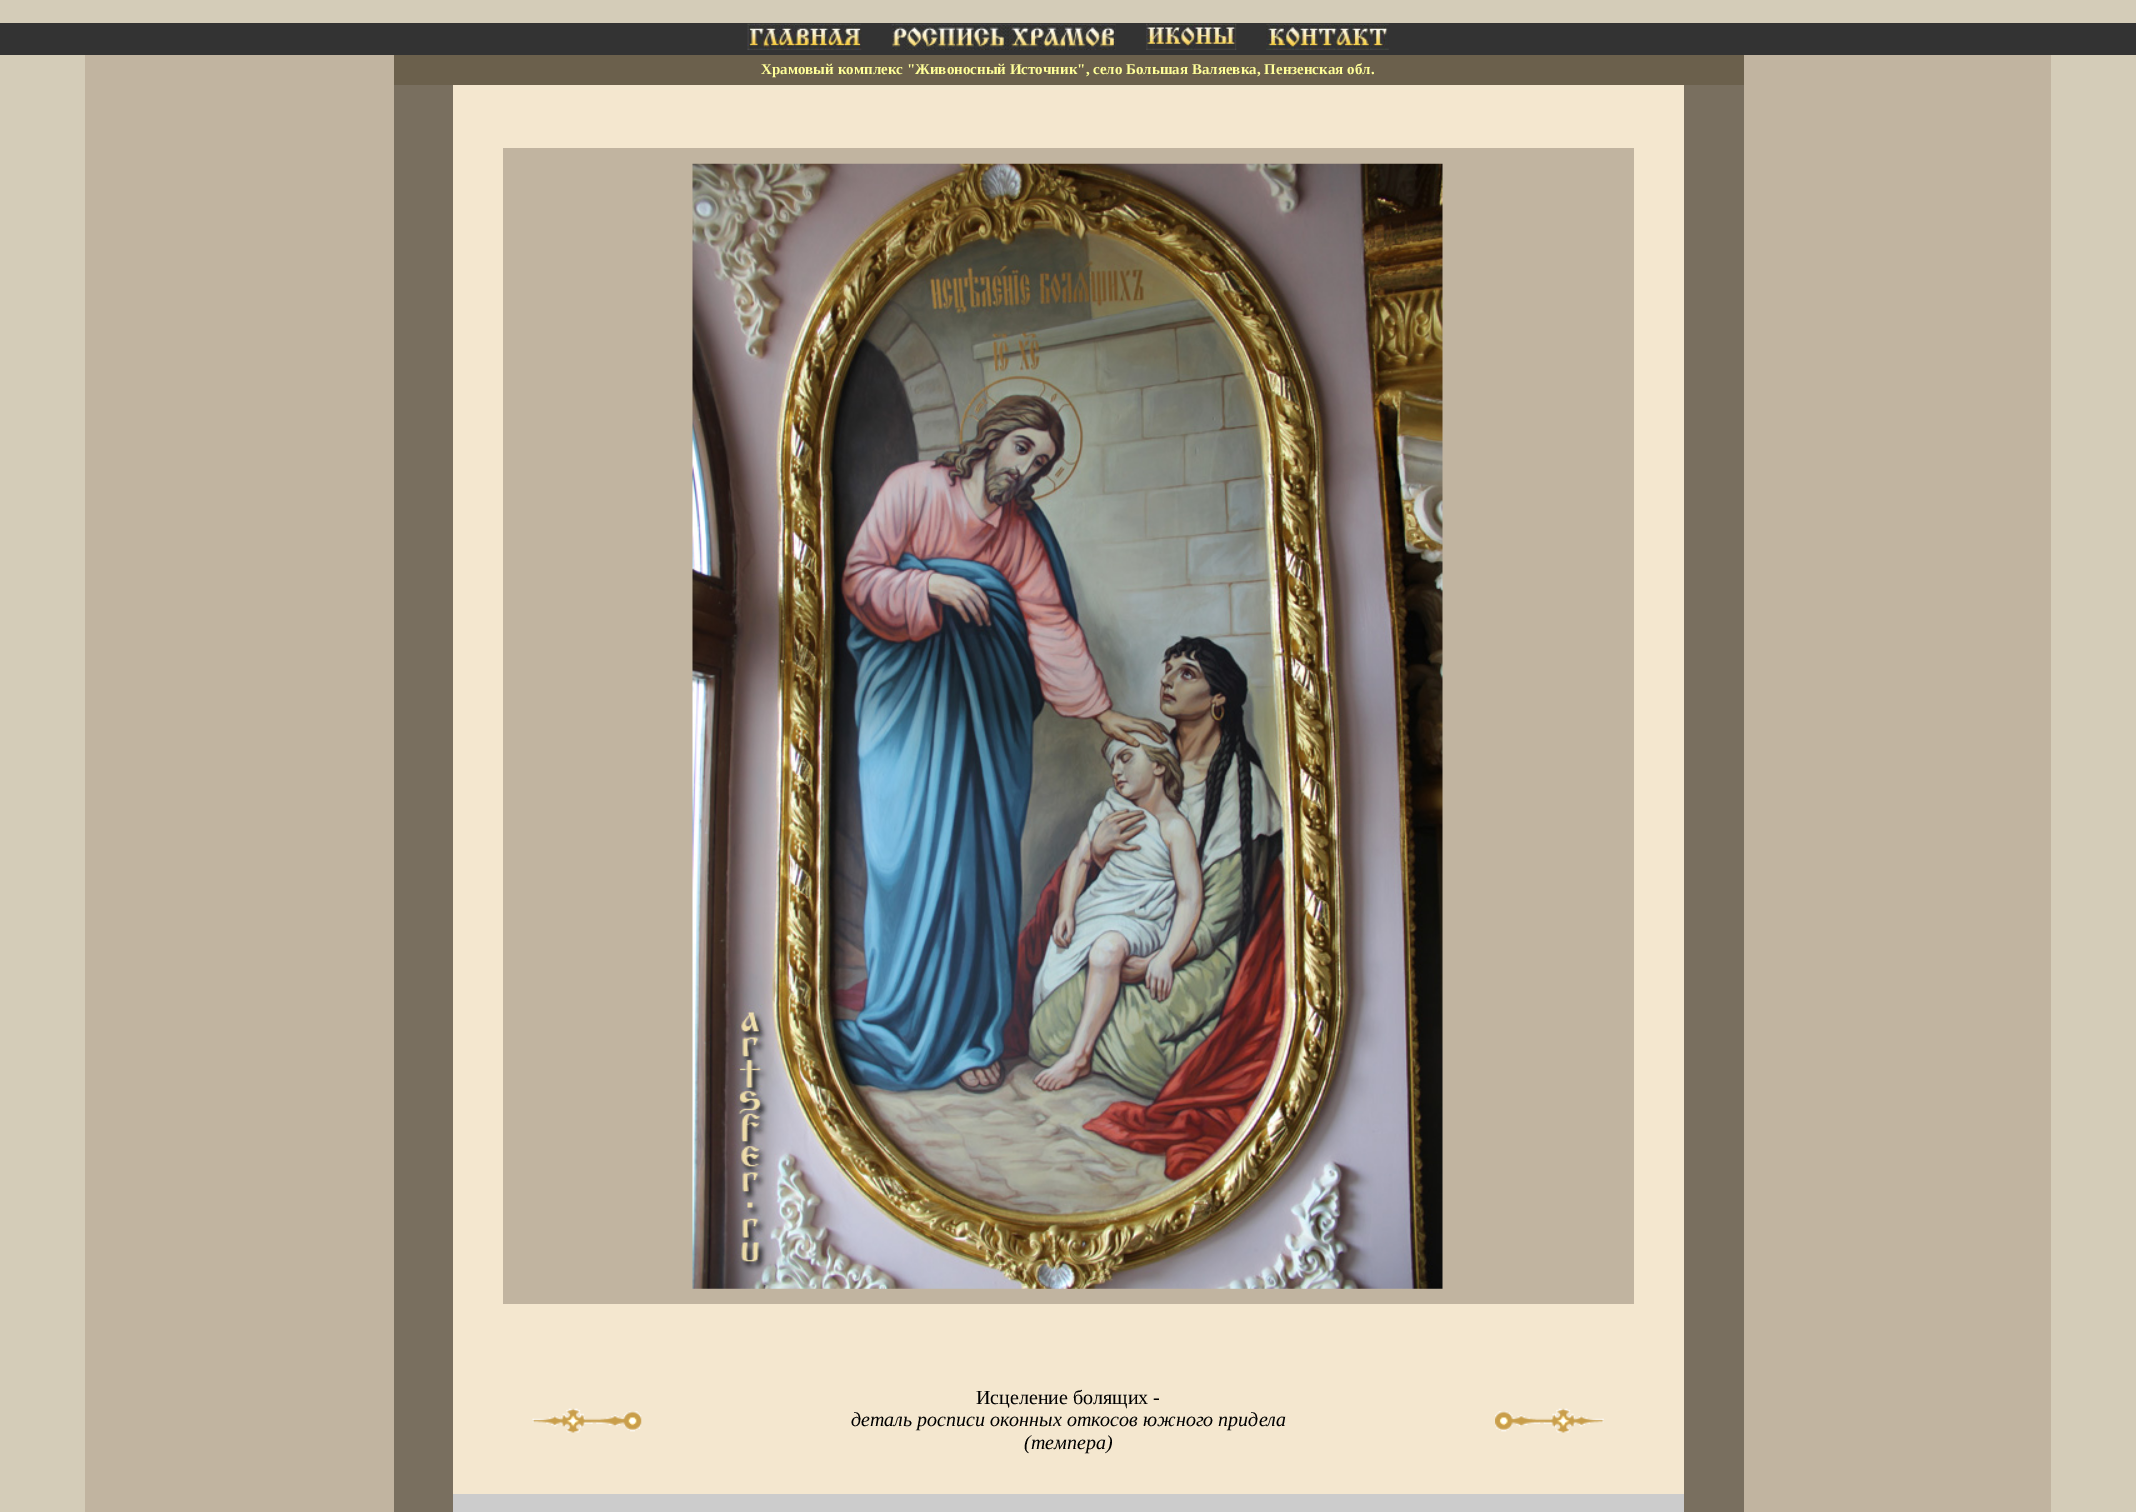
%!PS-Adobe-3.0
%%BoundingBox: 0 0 2136 1512
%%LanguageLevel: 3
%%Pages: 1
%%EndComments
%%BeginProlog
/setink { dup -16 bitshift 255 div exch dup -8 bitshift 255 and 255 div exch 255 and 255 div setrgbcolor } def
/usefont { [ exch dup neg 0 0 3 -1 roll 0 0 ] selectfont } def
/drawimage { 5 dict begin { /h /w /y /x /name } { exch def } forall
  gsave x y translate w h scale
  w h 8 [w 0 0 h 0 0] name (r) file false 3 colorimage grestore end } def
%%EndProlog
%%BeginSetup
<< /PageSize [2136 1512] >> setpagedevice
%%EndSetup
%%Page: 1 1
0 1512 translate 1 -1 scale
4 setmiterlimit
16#D4CCB8 setink
0 0 2136 1512 rectfill
16#333333 setink
0 23 2136 32 rectfill
(img1.raw) 747 23 115 27 drawimage
(img2.raw) 891 23 225 27 drawimage
(img3.raw) 1146 23 91 27 drawimage
(img4.raw) 1266 23 123 27 drawimage
16#C1B4A0 setink
85 55 1966 1457 rectfill
16#6B604C setink
394 55 1350 30 rectfill
/LiberationSerif-Bold 15 usefont
16#FFFF99 setink
761 74 moveto (Храмовый комплекс "Живоносный Источник", село Большая Валяевка, Пензенская обл.) show
[
    [394 85 59 1427 16#796F5F]
    [453 85 1231 1409 16#F4E7CF]
    [503 148 1131 1156 16#C1B4A0]
] { aload pop setink rectfill } forall
(img5.raw) 692 163 751 1126 drawimage
(img6.raw) 532 1408 110 25 drawimage
/LiberationSerif-Regular 20 usefont
16#000000 setink
976 1404 moveto (Исцеление болящих -) show
/LiberationSerif-Italic 20 usefont
851 1426 moveto (деталь росписи оконных откосов южного придела) show
1024 1449 moveto (\(темпера\)) show
(img7.raw) 1495 1408 109 25 drawimage
16#796F5F setink
1684 85 60 1427 rectfill
16#CCCCCC setink
453 1494 1231 18 rectfill
showpage
%%EOF
